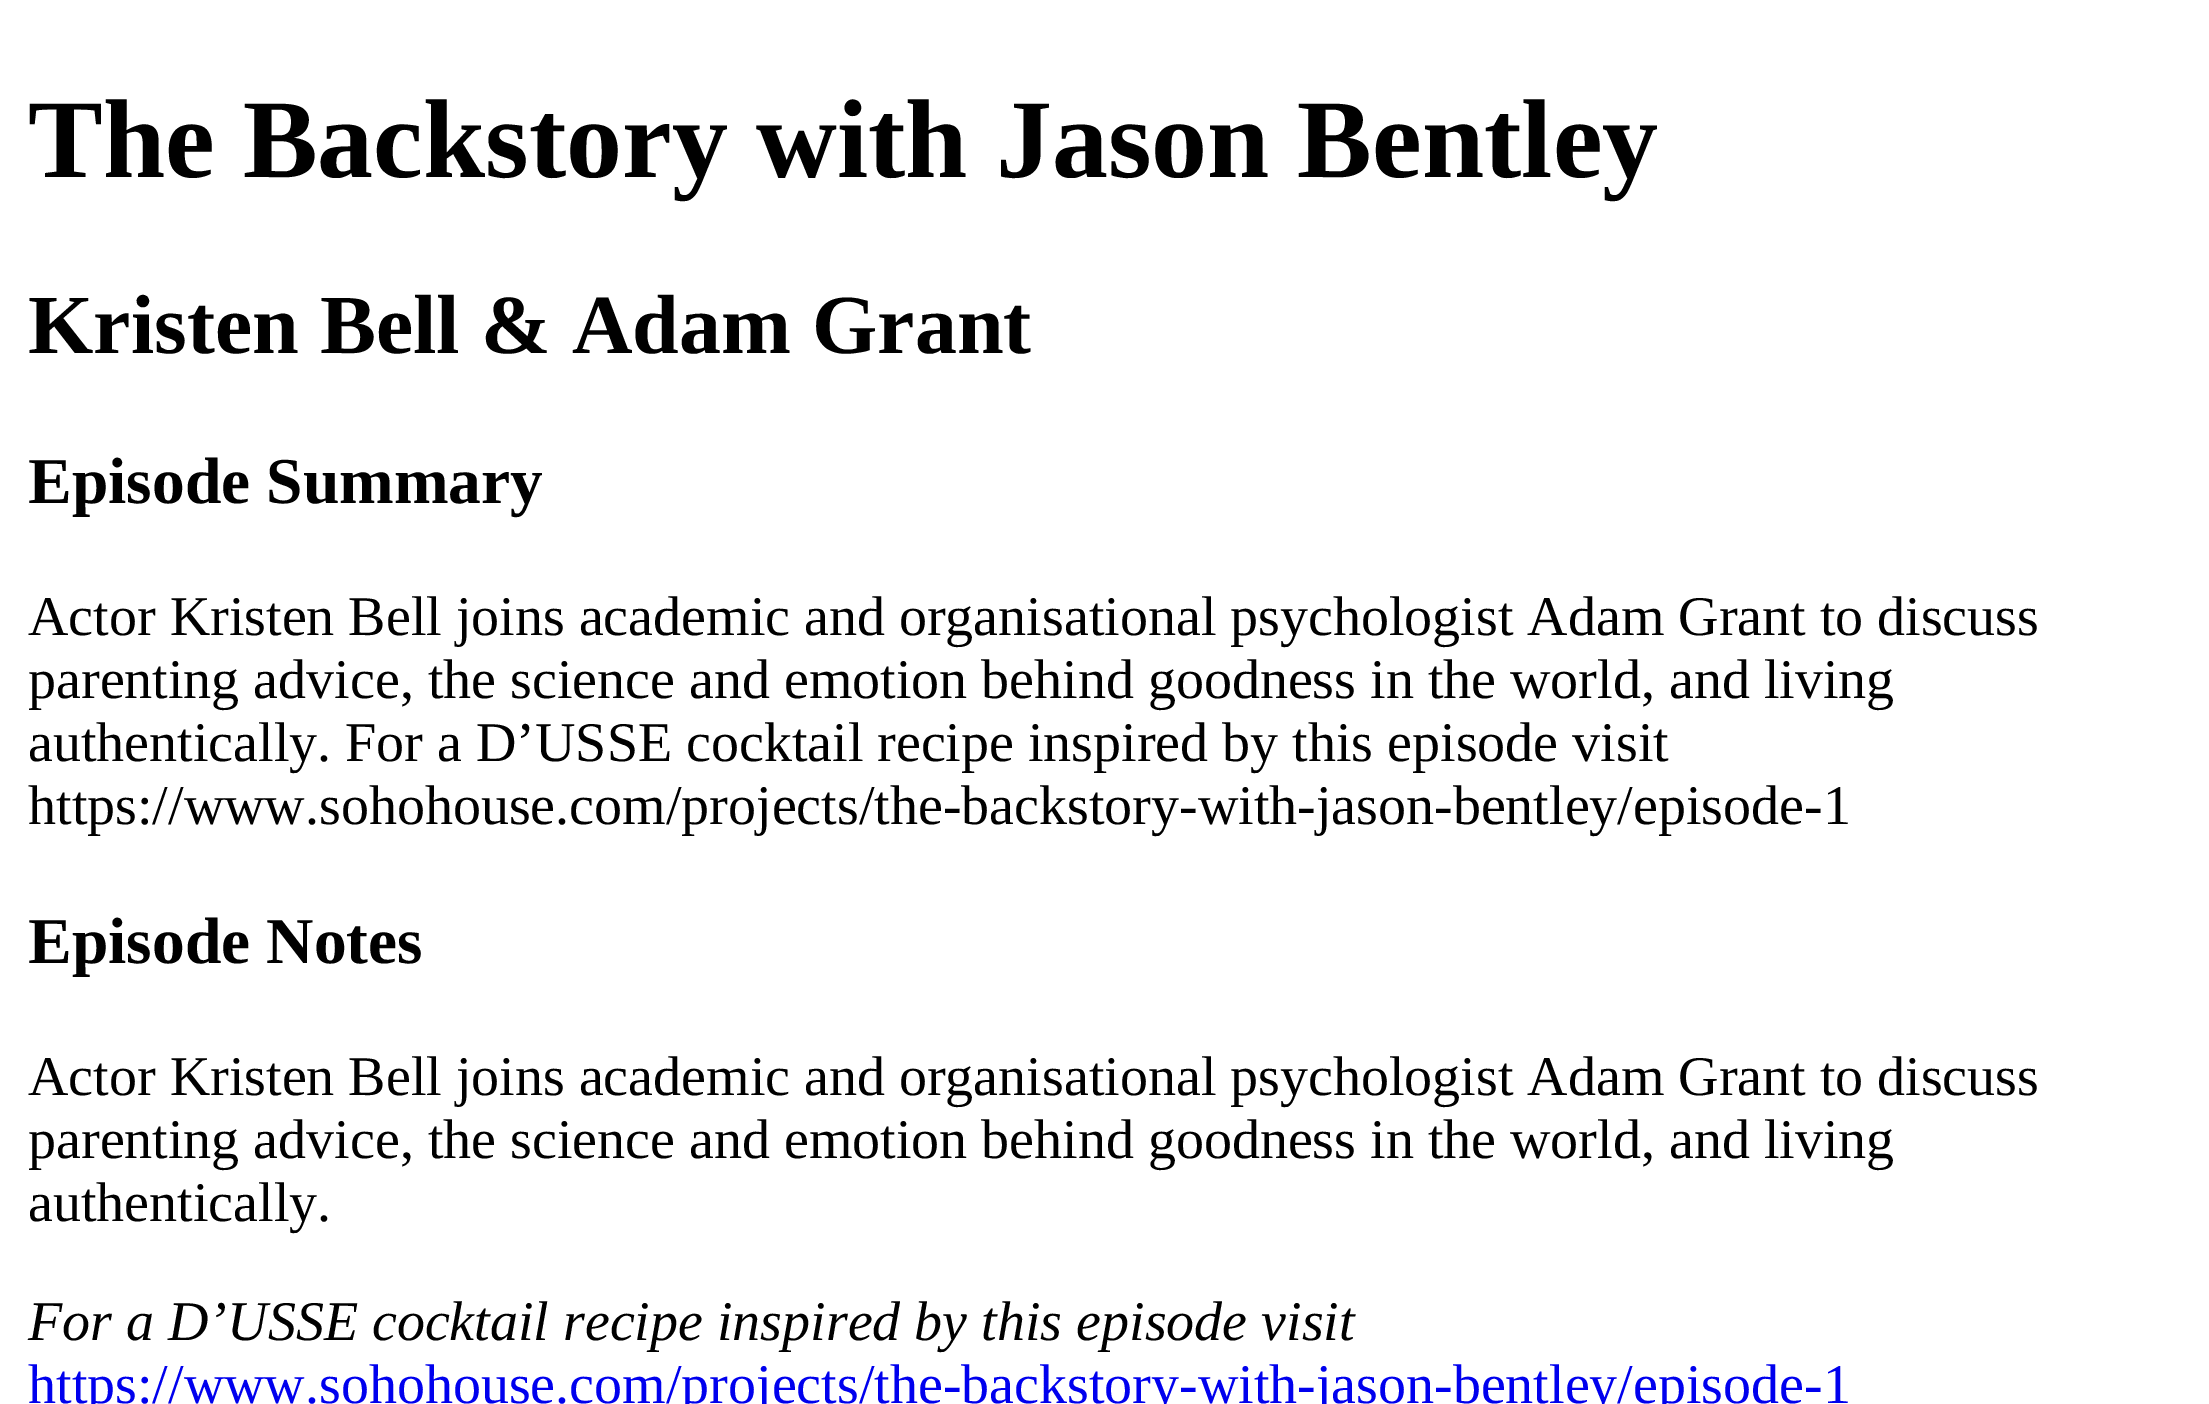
%!PS-Adobe-3.0
%%BoundingBox: 0 0 2209 1404
%%LanguageLevel: 3
%%Pages: 1
%%EndComments
%%BeginProlog
/setink { dup -16 bitshift 255 div exch dup -8 bitshift 255 and 255 div exch 255 and 255 div setrgbcolor } def
/usefont { [ exch dup neg 0 0 3 -1 roll 0 0 ] selectfont } def
%%EndProlog
%%BeginSetup
<< /PageSize [2209 1404] >> setpagedevice
%%EndSetup
%%Page: 1 1
0 1404 translate 1 -1 scale
4 setmiterlimit
16#FFFFFF setink
0 0 2209 1404 rectfill
/LiberationSerif-Bold 112 usefont
16#000000 setink
28 177 moveto (The Backstory with Jason Bentley) show
/LiberationSerif-Bold 84 usefont
28 353 moveto (Kristen Bell & Adam Grant) show
/LiberationSerif-Bold 65.5 usefont
28 503 moveto (Episode Summary) show
/LiberationSerif-Regular 56 usefont
[
    [(Actor Kristen Bell joins academic and organisational psychologist Adam Grant to discuss) 28 635]
    [(parenting advice, the science and emotion behind goodness in the world, and living) 28 698]
    [(authentically. For a D’USSE cocktail recipe inspired by this episode visit) 28 761]
    [(https://www.sohohouse.com/projects/the-backstory-with-jason-bentley/episode-1) 28 824]
] { aload pop moveto show } forall
/LiberationSerif-Bold 65.5 usefont
28 963 moveto (Episode Notes) show
/LiberationSerif-Regular 56 usefont
[
    [(Actor Kristen Bell joins academic and organisational psychologist Adam Grant to discuss) 28 1095]
    [(parenting advice, the science and emotion behind goodness in the world, and living) 28 1158]
    [(authentically.) 28 1221]
] { aload pop moveto show } forall
/LiberationSerif-Italic 56 usefont
28 1340 moveto (For a D’USSE cocktail recipe inspired by this episode visit) show
/LiberationSerif-Regular 56 usefont
16#0000EE setink
28 1403 moveto (https://www.sohohouse.com/projects/the-backstory-with-jason-bentley/episode-1) show
showpage
%%EOF
